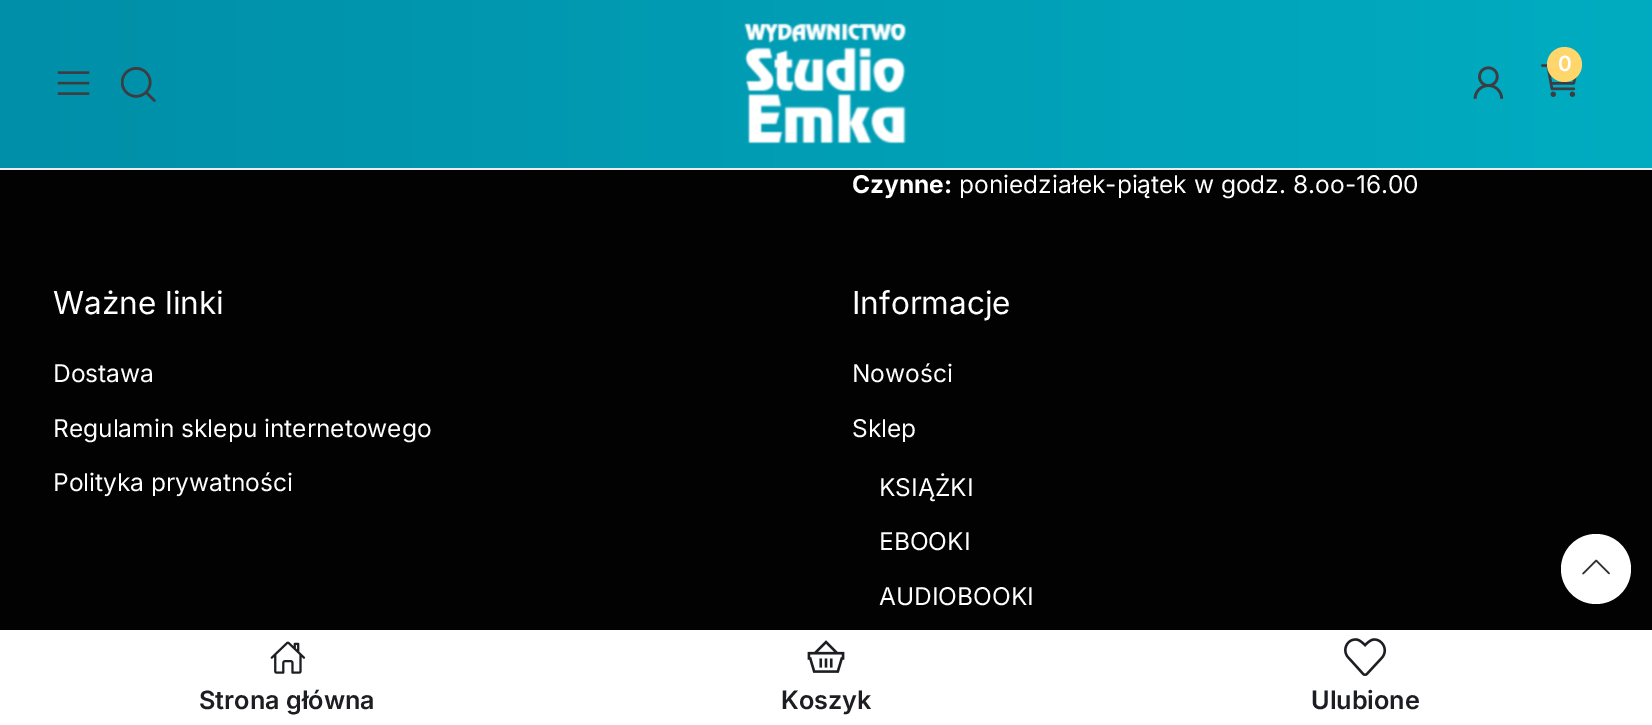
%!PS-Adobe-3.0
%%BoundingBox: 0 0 1652 725
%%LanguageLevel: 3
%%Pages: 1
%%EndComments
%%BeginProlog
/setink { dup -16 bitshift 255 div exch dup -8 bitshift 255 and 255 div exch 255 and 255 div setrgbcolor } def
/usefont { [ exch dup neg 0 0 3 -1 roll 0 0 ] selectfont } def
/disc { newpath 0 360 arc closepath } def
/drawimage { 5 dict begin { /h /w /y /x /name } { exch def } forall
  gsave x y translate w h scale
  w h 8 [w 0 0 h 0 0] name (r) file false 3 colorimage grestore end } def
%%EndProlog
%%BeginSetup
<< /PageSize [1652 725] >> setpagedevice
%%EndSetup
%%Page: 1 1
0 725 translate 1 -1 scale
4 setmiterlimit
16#020202 setink
0 0 1652 725 rectfill
gsave 0 0 moveto 1652 0 lineto 1652 168 lineto 0 168 lineto closepath clip newpath
<< /ShadingType 2 /ColorSpace /DeviceRGB /Coords [0 84 1652 84] /Extend [true true] /Function << /FunctionType 2 /Domain [0 1] /C0 [0 0.561 0.659] /C1 [0 0.675 0.757] /N 1 >> >> shfill grestore
16#EBEBEB setink
0 168 1652 2 rectfill
(img1.raw) 744 23 163 121 drawimage
(img2.raw) 1541 64 36 33 drawimage
16#FFD66C setink
1564.5 64.5 17.5 disc fill
/Inter-SemiBold 21 usefont
16#FFFFFF setink
1558 71 moveto (0) show
(img3.raw) 1473 66 31 33 drawimage
(img4.raw) 57 71 33 24 drawimage
(img5.raw) 121 66 35 36 drawimage
0 630 1652 95 rectfill
(img6.raw) 270 641 36 33 drawimage
/Inter-SemiBold 25.25 usefont
16#1D1E22 setink
199 709 moveto (Strona główna) show
(img7.raw) 807 640 38 33 drawimage
781 709 moveto (Koszyk) show
(img8.raw) 1344 638 43 38 drawimage
1311 709 moveto (Ulubione) show
/Inter-Bold 24.5 usefont
16#FFFFFF setink
852 193 moveto (Czynne:) show
/Inter-Regular 24.5 usefont
959 193 moveto (poniedziałek-piątek w godz. 8.oo-16.00) show
/Inter-Regular 31.5 usefont
53 314 moveto (Ważne linki) show
/Inter-Regular 24.5 usefont
[
    [(Dostawa) 53 382]
    [(Regulamin sklepu internetowego) 53 437]
    [(Polityka prywatności) 53 491]
] { aload pop moveto show } forall
/Inter-Regular 31.5 usefont
852 314 moveto (Informacje) show
/Inter-Regular 24.5 usefont
[
    [(Nowości) 852 382]
    [(Sklep) 852 437]
    [(KSIĄŻKI) 879 496]
    [(EBOOKI) 879 550]
    [(AUDIOBOOKI) 879 605]
] { aload pop moveto show } forall
1596 569 35 disc fill
(img9.raw) 1582 559 28 16 drawimage
showpage
%%EOF
